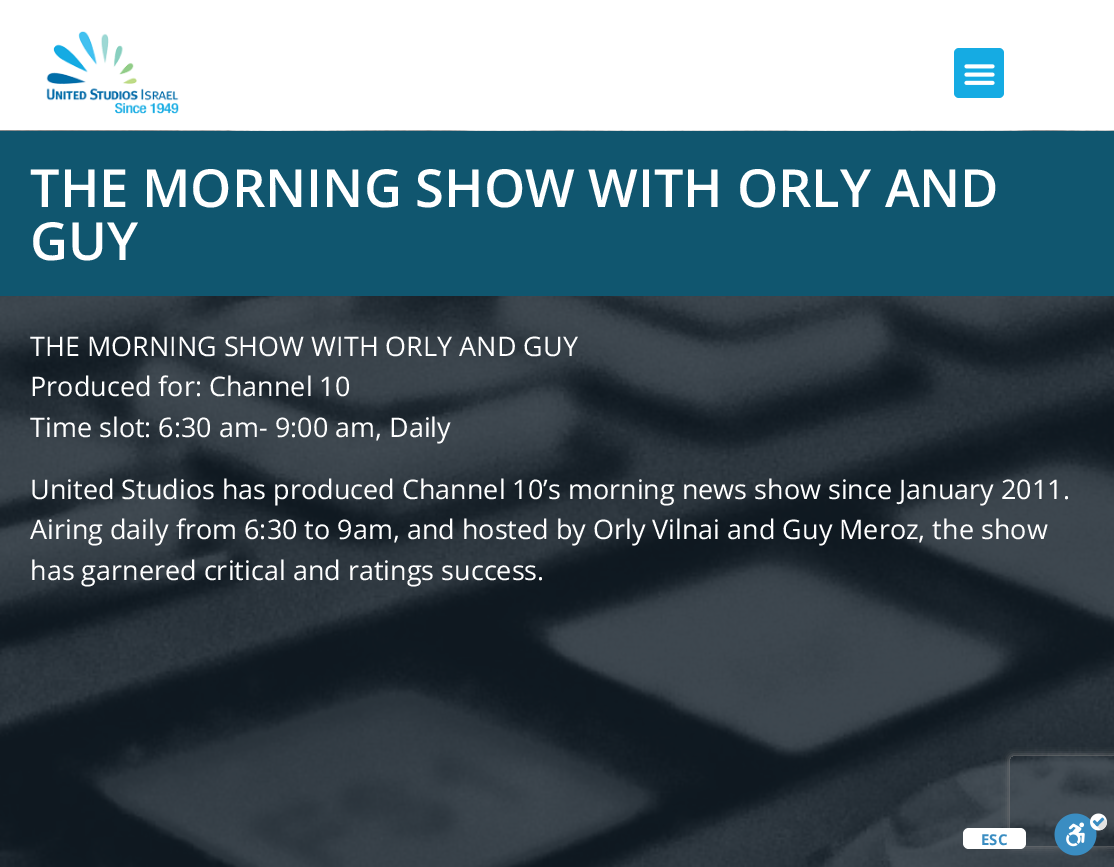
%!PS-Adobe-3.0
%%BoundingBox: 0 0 1114 867
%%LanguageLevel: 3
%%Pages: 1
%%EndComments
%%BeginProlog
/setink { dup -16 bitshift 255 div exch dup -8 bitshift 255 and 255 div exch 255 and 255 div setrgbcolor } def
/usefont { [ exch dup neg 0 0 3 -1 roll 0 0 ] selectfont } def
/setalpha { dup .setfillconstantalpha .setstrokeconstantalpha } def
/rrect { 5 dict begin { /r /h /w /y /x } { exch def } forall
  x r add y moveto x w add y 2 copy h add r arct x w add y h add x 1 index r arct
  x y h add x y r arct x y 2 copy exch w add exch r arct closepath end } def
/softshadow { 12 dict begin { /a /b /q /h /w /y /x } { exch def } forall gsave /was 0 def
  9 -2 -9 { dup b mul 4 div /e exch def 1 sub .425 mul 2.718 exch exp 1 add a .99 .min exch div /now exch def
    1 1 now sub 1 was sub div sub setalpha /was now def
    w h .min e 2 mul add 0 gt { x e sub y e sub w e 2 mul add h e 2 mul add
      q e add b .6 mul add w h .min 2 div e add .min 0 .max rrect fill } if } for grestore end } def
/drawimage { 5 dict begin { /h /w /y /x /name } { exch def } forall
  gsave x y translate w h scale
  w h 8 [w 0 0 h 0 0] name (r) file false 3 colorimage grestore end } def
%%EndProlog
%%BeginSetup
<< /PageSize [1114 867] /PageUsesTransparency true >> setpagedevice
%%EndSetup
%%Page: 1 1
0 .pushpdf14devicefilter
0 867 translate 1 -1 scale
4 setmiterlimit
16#FFFFFF setink
0 0 1114 867 rectfill
(img1.raw) 46 31 133 83 drawimage
16#15ABE3 setink
954 48 50 50 5 rrect fill
(img2.raw) 964 64 31 21 drawimage
(img3.raw) 0 130 1114 737 drawimage
16#10566F setink
0 131 1114 165 rectfill
/OpenSans-SemiBold 52.5 usefont
16#FFFFFF setink
30 207 moveto (THE MORNING SHOW WITH ORLY AND) show
30 260 moveto (GUY) show
/OpenSans-Regular 27 usefont
[
    [(THE MORNING SHOW WITH ORLY AND GUY) 30 356]
    [(Produced for: Channel 10) 30 396]
    [(Time slot: 6:30 am- 9:00 am, Daily) 30 437]
    [(United Studios has produced Channel 10’s morning news show since January 2011.) 30 499]
    [(Airing daily from 6:30 to 9am, and hosted by Orly Vilnai and Guy Meroz, the show) 30 539]
    [(has garnered critical and ratings success.) 30 580]
] { aload pop moveto show } forall
gsave
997 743 moveto 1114 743 lineto 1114 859 lineto 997 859 lineto closepath 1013 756 moveto 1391 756 lineto 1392.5 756 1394 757.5 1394 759 curveto 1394 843 lineto 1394 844.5 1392.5 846 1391 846 curveto 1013 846 lineto 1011.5 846 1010 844.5 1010 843 curveto 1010 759 lineto 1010 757.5 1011.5 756 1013 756 curveto closepath eoclip newpath
16#808080 setink
1010 756 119 90 3 4 1 softshadow
grestore
963 828 63 21 6 rrect fill
/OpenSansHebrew-Bold 15 usefont
16#3A8DC2 setink
981 845 moveto (ESC) show
(img4.raw) 1054 813 53 43 drawimage
.poppdf14devicefilter showpage
%%EOF
